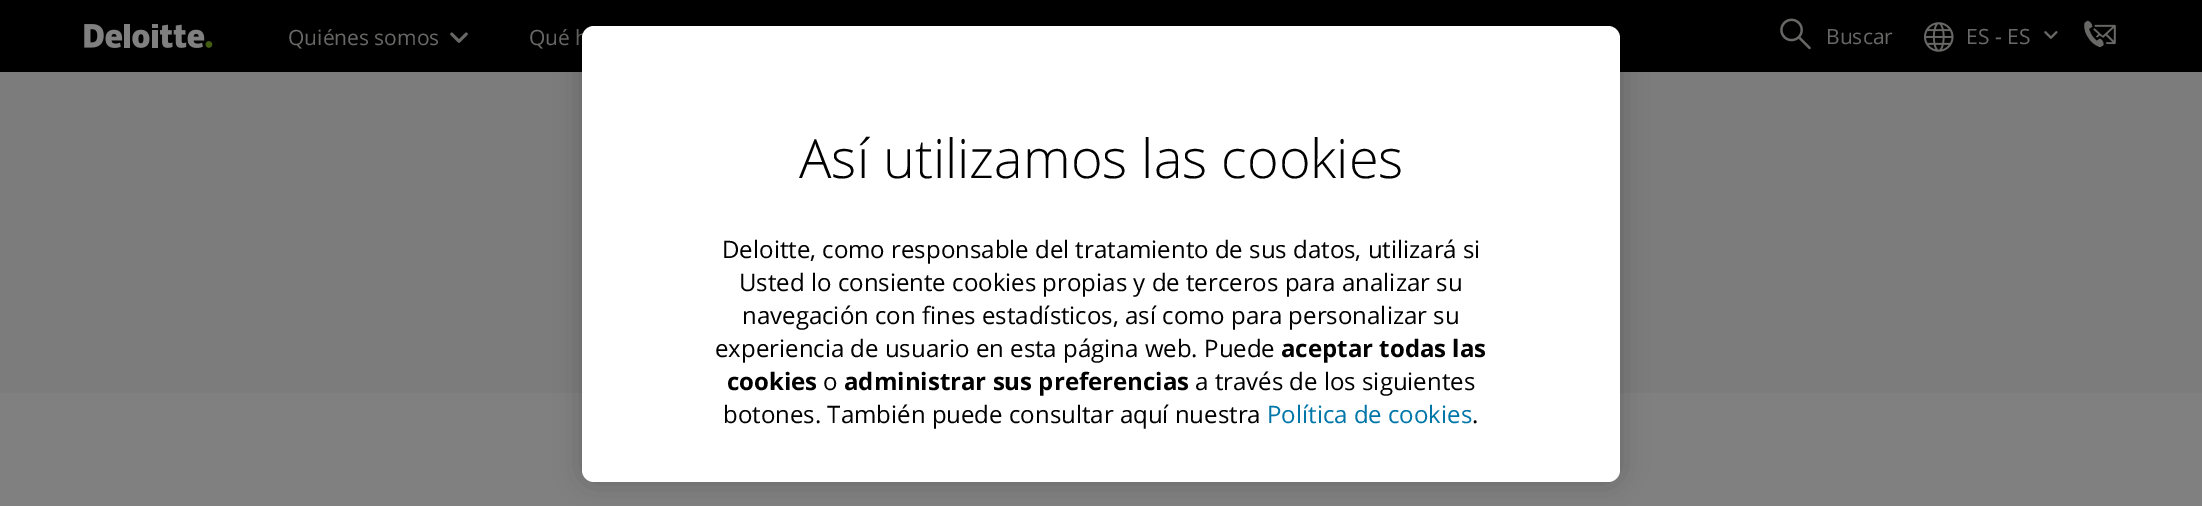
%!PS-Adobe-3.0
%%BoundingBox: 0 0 2202 506
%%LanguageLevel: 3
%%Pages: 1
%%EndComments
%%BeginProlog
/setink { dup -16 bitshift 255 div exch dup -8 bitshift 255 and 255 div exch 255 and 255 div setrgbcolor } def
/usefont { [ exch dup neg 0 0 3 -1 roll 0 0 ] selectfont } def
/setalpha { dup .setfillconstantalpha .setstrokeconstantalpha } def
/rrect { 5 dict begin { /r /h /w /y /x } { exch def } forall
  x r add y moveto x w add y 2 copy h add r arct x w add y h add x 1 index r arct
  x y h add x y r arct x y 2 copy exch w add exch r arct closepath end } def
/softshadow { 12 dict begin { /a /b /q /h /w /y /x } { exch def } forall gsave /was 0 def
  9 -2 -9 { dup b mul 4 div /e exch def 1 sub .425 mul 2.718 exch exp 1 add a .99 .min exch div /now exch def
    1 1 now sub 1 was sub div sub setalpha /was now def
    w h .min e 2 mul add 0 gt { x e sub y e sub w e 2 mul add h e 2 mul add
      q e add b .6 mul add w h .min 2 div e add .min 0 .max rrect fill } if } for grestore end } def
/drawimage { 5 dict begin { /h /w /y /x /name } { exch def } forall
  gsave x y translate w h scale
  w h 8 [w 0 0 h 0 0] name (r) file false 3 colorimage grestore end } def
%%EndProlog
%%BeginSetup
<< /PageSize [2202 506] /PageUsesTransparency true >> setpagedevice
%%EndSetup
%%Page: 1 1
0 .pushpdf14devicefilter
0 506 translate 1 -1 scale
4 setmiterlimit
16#808080 setink
0 0 2202 506 rectfill
16#000000 setink
0 0 2202 72 rectfill
(img1.raw) 84 24 129 24 drawimage
/OpenSans-Regular 21 usefont
16#686867 setink
288 45 moveto (Quiénes somos) show
(img2.raw) 450 32 18 11 drawimage
529 45 moveto (Qué h) show
(img3.raw) 1780 18 31 32 drawimage
1826 44 moveto (Buscar) show
(img4.raw) 1924 22 30 30 drawimage
1966 44 moveto (ES - ES) show
(img5.raw) 2044 31 14 8 drawimage
(img6.raw) 2084 20 32 28 drawimage
16#7C7C7C setink
0 72 2202 321 rectfill
16#000000 setink
582 26 1038 456 12 13.5 0.2 softshadow
16#FFFFFF setink
582 26 1038 456 12 rrect fill
/OpenSans-Light 54 usefont
16#000000 setink
799 178 moveto (Así utilizamos las cookies) show
/OpenSans-Regular 24 usefont
[
    [(Deloitte, como responsable del tratamiento de sus datos, utilizará si) 722 258]
    [(Usted lo consiente cookies propias y de terceros para analizar su) 739 291]
    [(navegación con fines estadísticos, así como para personalizar su) 742 324]
    [(experiencia de usuario en esta página web. Puede) 715 357]
] { aload pop moveto show } forall
/OpenSans-Bold 24 usefont
1281 357 moveto (aceptar todas las) show
727 390 moveto (cookies) show
/OpenSans-Regular 24 usefont
823 390 moveto (o) show
/OpenSans-Bold 24 usefont
844 390 moveto (administrar sus preferencias) show
/OpenSans-Regular 24 usefont
1195 390 moveto (a través de los siguientes) show
723 423 moveto (botones. También puede consultar aquí nuestra) show
16#0076A8 setink
1267 423 moveto (Política de cookies) show
16#000000 setink
1472 423 moveto (.) show
.poppdf14devicefilter showpage
%%EOF
